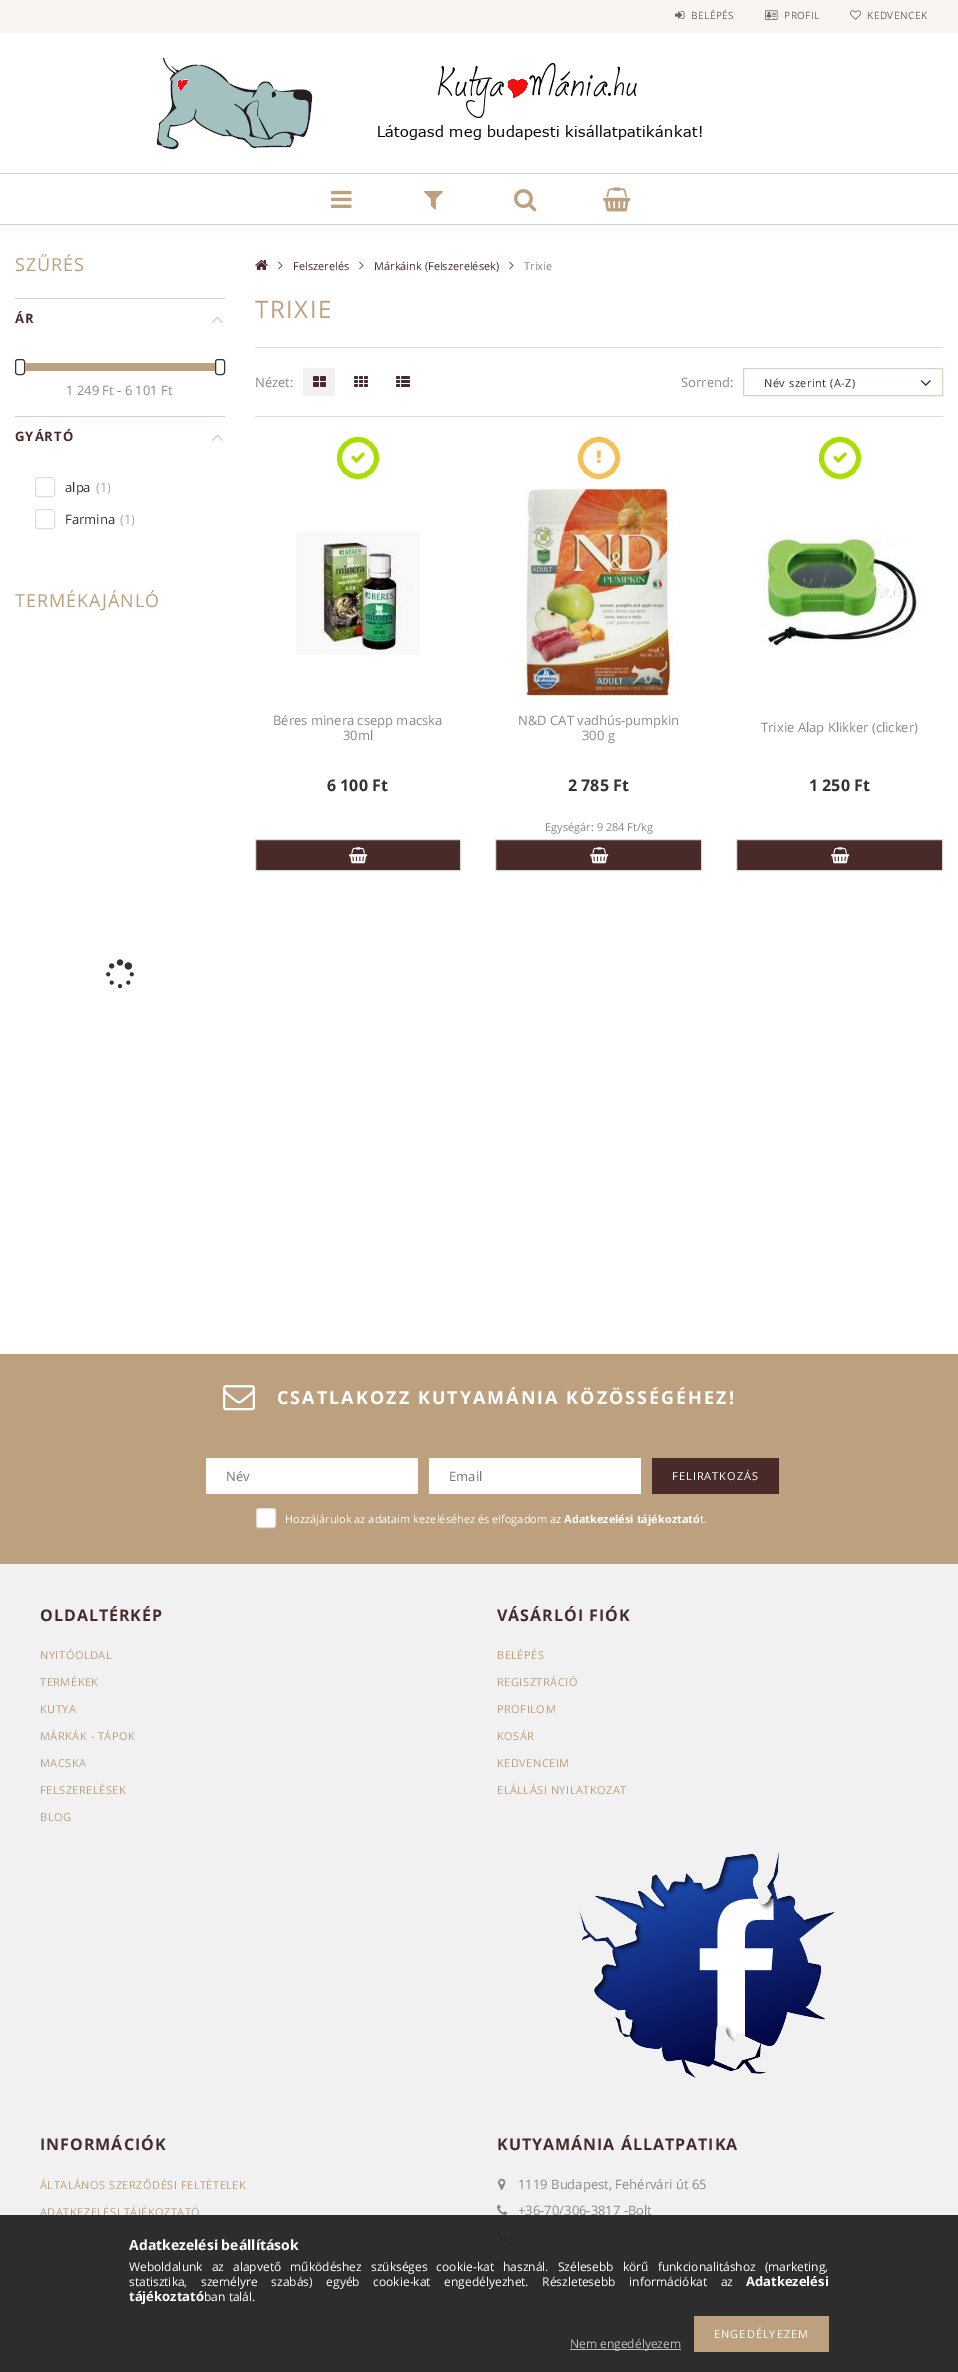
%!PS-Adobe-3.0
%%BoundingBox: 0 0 958 2372
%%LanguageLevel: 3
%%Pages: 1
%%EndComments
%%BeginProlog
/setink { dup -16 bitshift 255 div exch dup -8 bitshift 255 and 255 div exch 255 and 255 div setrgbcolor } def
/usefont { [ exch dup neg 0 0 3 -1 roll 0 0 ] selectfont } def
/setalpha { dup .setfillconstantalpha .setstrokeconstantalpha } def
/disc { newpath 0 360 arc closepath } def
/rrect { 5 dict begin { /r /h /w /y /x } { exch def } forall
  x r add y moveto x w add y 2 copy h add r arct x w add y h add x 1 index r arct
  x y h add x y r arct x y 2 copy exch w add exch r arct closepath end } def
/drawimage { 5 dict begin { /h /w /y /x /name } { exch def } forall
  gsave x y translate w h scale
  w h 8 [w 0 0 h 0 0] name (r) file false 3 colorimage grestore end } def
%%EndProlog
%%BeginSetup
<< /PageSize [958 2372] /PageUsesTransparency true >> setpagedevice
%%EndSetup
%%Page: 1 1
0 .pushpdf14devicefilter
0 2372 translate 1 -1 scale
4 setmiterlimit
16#FFFFFF setink
0 0 958 2372 rectfill
16#F8F5F2 setink
0 0 958 33 rectfill
(img1.raw) 675 11 10 8 drawimage
/OpenSans-Regular 10 usefont
16#666666 setink
691 19 moveto 0.5 0 (BELÉPÉS) ashow
(img2.raw) 765 10 13 10 drawimage
784 19 moveto 0.5 0 (PROFIL) ashow
(img3.raw) 850 10 11 10 drawimage
867 19 moveto 0.5 0 (KEDVENCEK) ashow
(img4.raw) 156 58 157 92 drawimage
(img5.raw) 378 63 324 77 drawimage
16#DECFBE setink
0 173 958 1 rectfill
0 224 958 1 rectfill
(img6.raw) 331 190 21 18 drawimage
(img7.raw) 424 190 19 20 drawimage
(img8.raw) 514 189 23 23 drawimage
(img9.raw) 603 187 28 25 drawimage
/OpenSans-Regular 18 usefont
16#BDA07E setink
15 271 moveto 1 0 (SZŰRÉS) ashow
16#DECFBE setink
15 298 210 1 rectfill
/OpenSans-Bold 13 usefont
16#482A28 setink
15 323 moveto 1 0 (ÁR) ashow
(img10.raw) 212 316 11 7 drawimage
16#333333 setink
15.5 359.5 9 15 2.5 rrect stroke
16#BDA07E setink
25 363 190 8 rectfill
16#333333 setink
215.5 359.5 9 15 2.5 rrect stroke
/OpenSans-Regular 13 usefont
16#888888 setink
66 395 moveto (1 249 Ft - 6 101 Ft) show
16#DECFBE setink
15 416 210 1 rectfill
/OpenSans-Bold 13 usefont
16#482A28 setink
15 441 moveto 1 0 (GYÁRTÓ) ashow
(img10.raw) 212 434 11 7 drawimage
16#DDDDDD setink
35.5 477.5 19 19 2.5 rrect stroke
/OpenSans-Regular 13 usefont
16#333333 setink
65 492 moveto (alpa) show
16#AAAAAA setink
96 492 moveto (\(1\)) show
16#DDDDDD setink
35.5 509.5 19 19 2.5 rrect stroke
16#333333 setink
65 524 moveto (Farmina) show
16#AAAAAA setink
120 524 moveto (\(1\)) show
/OpenSans-Regular 18 usefont
16#BDA07E setink
15 607 moveto 1 0 (TERMÉKAJÁNLÓ) ashow
(img11.raw) 106 959 28 30 drawimage
(img12.raw) 255 260 13 10 drawimage
(img13.raw) 278 261 5 9 drawimage
/OpenSans-Regular 11 usefont
16#482A28 setink
293 270 moveto (Felszerelés) show
(img13.raw) 359 261 5 9 drawimage
374 270 moveto (Márkáink \(Felszerelések\)) show
(img13.raw) 509 261 5 9 drawimage
16#888888 setink
524 270 moveto (Trixie) show
/OpenSans-Regular 24 usefont
16#BDA07E setink
255 318 moveto 1.5 0 (TRIXIE) ashow
16#DDDDDD setink
255 347 688 1 rectfill
/OpenSans-Regular 13 usefont
16#888888 setink
255 387 moveto (Nézet:) show
16#F1F1F1 setink
303 368 32 28 rectfill
(img14.raw) 313 376 13 11 drawimage
(img15.raw) 354 376 14 11 drawimage
(img16.raw) 396 376 14 11 drawimage
16#888888 setink
681 387 moveto (Sorrend:) show
16#DECFBE setink
743.5 368.5 199 27 rectstroke
/OpenSans-Regular 11 usefont
16#333333 setink
764 387 moveto 0.5 0 (Név szerint \(A-Z\)) ashow
(img17.raw) 920 380 11 6 drawimage
16#DDDDDD setink
255 416 688 1 rectfill
16#AADD00 setink
5 setlinewidth
358 458 18.5 disc stroke
(img18.raw) 351 452 14 11 drawimage
(img19.raw) 296 531 124 124 drawimage
/OpenSans-Regular 13 usefont
16#888888 setink
273 725 moveto (Béres minera csepp macska) show
343 740 moveto (30ml) show
/OpenSans-Bold 16 usefont
16#333333 setink
327 791 moveto (6 100 Ft) show
16#482A28 setink
255.5 839.5 moveto 460.5 839.5 lineto 460.5 870.5 lineto 255.5 870.5 lineto closepath gsave fill grestore
16#DDDDDD setink
1 setlinewidth
stroke
(img20.raw) 349 847 19 17 drawimage
16#F5C056 setink
5 setlinewidth
599 458 18.5 disc stroke
(img21.raw) 596 450 5 13 drawimage
(img22.raw) 521 489 158 207 drawimage
/OpenSans-Regular 13 usefont
16#888888 setink
518 725 moveto (N&D CAT vadhús-pumpkin) show
582 740 moveto (300 g) show
/OpenSans-Bold 16 usefont
16#333333 setink
568 791 moveto (2 785 Ft) show
/OpenSans-Regular 11 usefont
16#888888 setink
545 831 moveto (Egységár: 9 284 Ft/kg) show
16#482A28 setink
495.5 839.5 moveto 701.5 839.5 lineto 701.5 870.5 lineto 495.5 870.5 lineto closepath gsave fill grestore
16#DDDDDD setink
1 setlinewidth
stroke
(img20.raw) 590 847 19 17 drawimage
16#AADD00 setink
5 setlinewidth
840 458 18.5 disc stroke
(img18.raw) 833 452 14 11 drawimage
(img23.raw) 759 529 162 119 drawimage
/OpenSans-Regular 13 usefont
16#888888 setink
761 732 moveto (Trixie Alap Klikker \(clicker\)) show
/OpenSans-Bold 16 usefont
16#333333 setink
809 791 moveto (1 250 Ft) show
16#482A28 setink
736.5 839.5 moveto 942.5 839.5 lineto 942.5 870.5 lineto 736.5 870.5 lineto closepath gsave fill grestore
16#DDDDDD setink
1 setlinewidth
stroke
(img20.raw) 831 847 19 17 drawimage
16#BDA07E setink
0 1354 958 210 rectfill
(img24.raw) 223 1385 32 26 drawimage
/OpenSans-Bold 18 usefont
16#FFFFFF setink
277 1404 moveto 2 0 (CSATLAKOZZ KUTYAMÁNIA KÖZÖSSÉGÉHEZ!) ashow
206 1458 212 36 rectfill
/OpenSans-Regular 13 usefont
16#757575 setink
226 1481 moveto (Név) show
16#FFFFFF setink
429 1458 212 36 rectfill
16#757575 setink
449 1481 moveto (Email) show
16#482A28 setink
652 1458 127 36 rectfill
/OpenSans-Regular 11 usefont
16#FFFFFF setink
672 1480 moveto 1 0 (FELIRATKOZÁS) ashow
256.5 1508.5 19 19 2.5 rrect gsave fill grestore
16#DDDDDD setink
stroke
16#FFFFFF setink
285 1523 moveto (Hozzájárulok az adataim kezeléséhez és elfogadom az) show
/OpenSans-Bold 11 usefont
564 1523 moveto (Adatkezelési tájékoztató) show
/OpenSans-Regular 11 usefont
700 1523 moveto (t.) show
16#F1F1F1 setink
0 1564 958 808 rectfill
/OpenSans-Bold 16 usefont
16#482A28 setink
40 1621 moveto 1 0 (OLDALTÉRKÉP) ashow
/OpenSans-Regular 11 usefont
16#BDA07E setink
40 1659 moveto 0.5 0 (NYITÓOLDAL) ashow
40 1686 moveto 0.5 0 (TERMÉKEK) ashow
40 1713 moveto 0.5 0 (KUTYA) ashow
40 1740 moveto 0.5 0 (MÁRKÁK - TÁPOK) ashow
40 1767 moveto 0.5 0 (MACSKA) ashow
40 1794 moveto 0.5 0 (FELSZERELÉSEK) ashow
40 1821 moveto 0.5 0 (BLOG) ashow
/OpenSans-Bold 16 usefont
16#482A28 setink
497 1621 moveto 1 0 (VÁSÁRLÓI FIÓK) ashow
/OpenSans-Regular 11 usefont
16#BDA07E setink
497 1659 moveto 0.5 0 (BELÉPÉS) ashow
497 1686 moveto 0.5 0 (REGISZTRÁCIÓ) ashow
497 1713 moveto 0.5 0 (PROFILOM) ashow
497 1740 moveto 0.5 0 (KOSÁR) ashow
497 1767 moveto 0.5 0 (KEDVENCEIM) ashow
497 1794 moveto 0.5 0 (ELÁLLÁSI NYILATKOZAT) ashow
(img25.raw) 579 1852 256 226 drawimage
/OpenSans-Bold 16 usefont
16#482A28 setink
40 2150 moveto 1 0 (INFORMÁCIÓK) ashow
/OpenSans-Regular 11 usefont
16#BDA07E setink
40 2189 moveto 0.5 0 (ÁLTALÁNOS SZERZŐDÉSI FELTÉTELEK) ashow
40 2216 moveto 0.5 0 (ADATKEZELÉSI TÁJÉKOZTATÓ) ashow
/OpenSans-Bold 16 usefont
16#482A28 setink
497 2150 moveto 1 0 (KUTYAMÁNIA ÁLLATPATIKA) ashow
(img26.raw) 498 2178 8 12 drawimage
/OpenSans-Regular 13 usefont
16#888888 setink
518 2189 moveto (1119 Budapest, Fehérvári út 65) show
(img27.raw) 497 2204 11 11 drawimage
518 2215 moveto (+36-70/306-3817 -Bolt) show
(img27.raw) 497 2230 11 11 drawimage
(img28.raw) 497 2259 11 9 drawimage
0.95 setalpha
16#222222 setink
0 2215 958 157 rectfill
/OpenSans-Bold 14 usefont
1 setalpha
16#FFFFFF setink
129 2250 moveto (Adatkezelési beállítások) show
/OpenSans-Regular 12 usefont
129 2271 moveto 6 0 32 (Weboldalunk az alapvető működéshez szükséges cookie-kat használ. Szélesebb körű funkcionalitáshoz \(marketing,) widthshow
129 2286 moveto 10.5 0 32 (statisztika, személyre szabás\) egyéb cookie-kat engedélyezhet. Részletesebb információkat az) widthshow
/OpenSans-Bold 13 usefont
746 2286 moveto (Adatkezelési) show
129 2301 moveto (tájékoztató) show
/OpenSans-Regular 12 usefont
204 2301 moveto (ban talál.) show
16#BDA07E setink
694 2316 135 36 rectfill
/OpenSans-Regular 11 usefont
16#FFFFFF setink
714 2338 moveto 1 0 (ENGEDÉLYEZEM) ashow
16#C0C0C0 setink
570 2349 111 1 rectfill
/OpenSans-Regular 12 usefont
570 2348 moveto (Nem engedélyezem) show
.poppdf14devicefilter showpage
%%EOF
